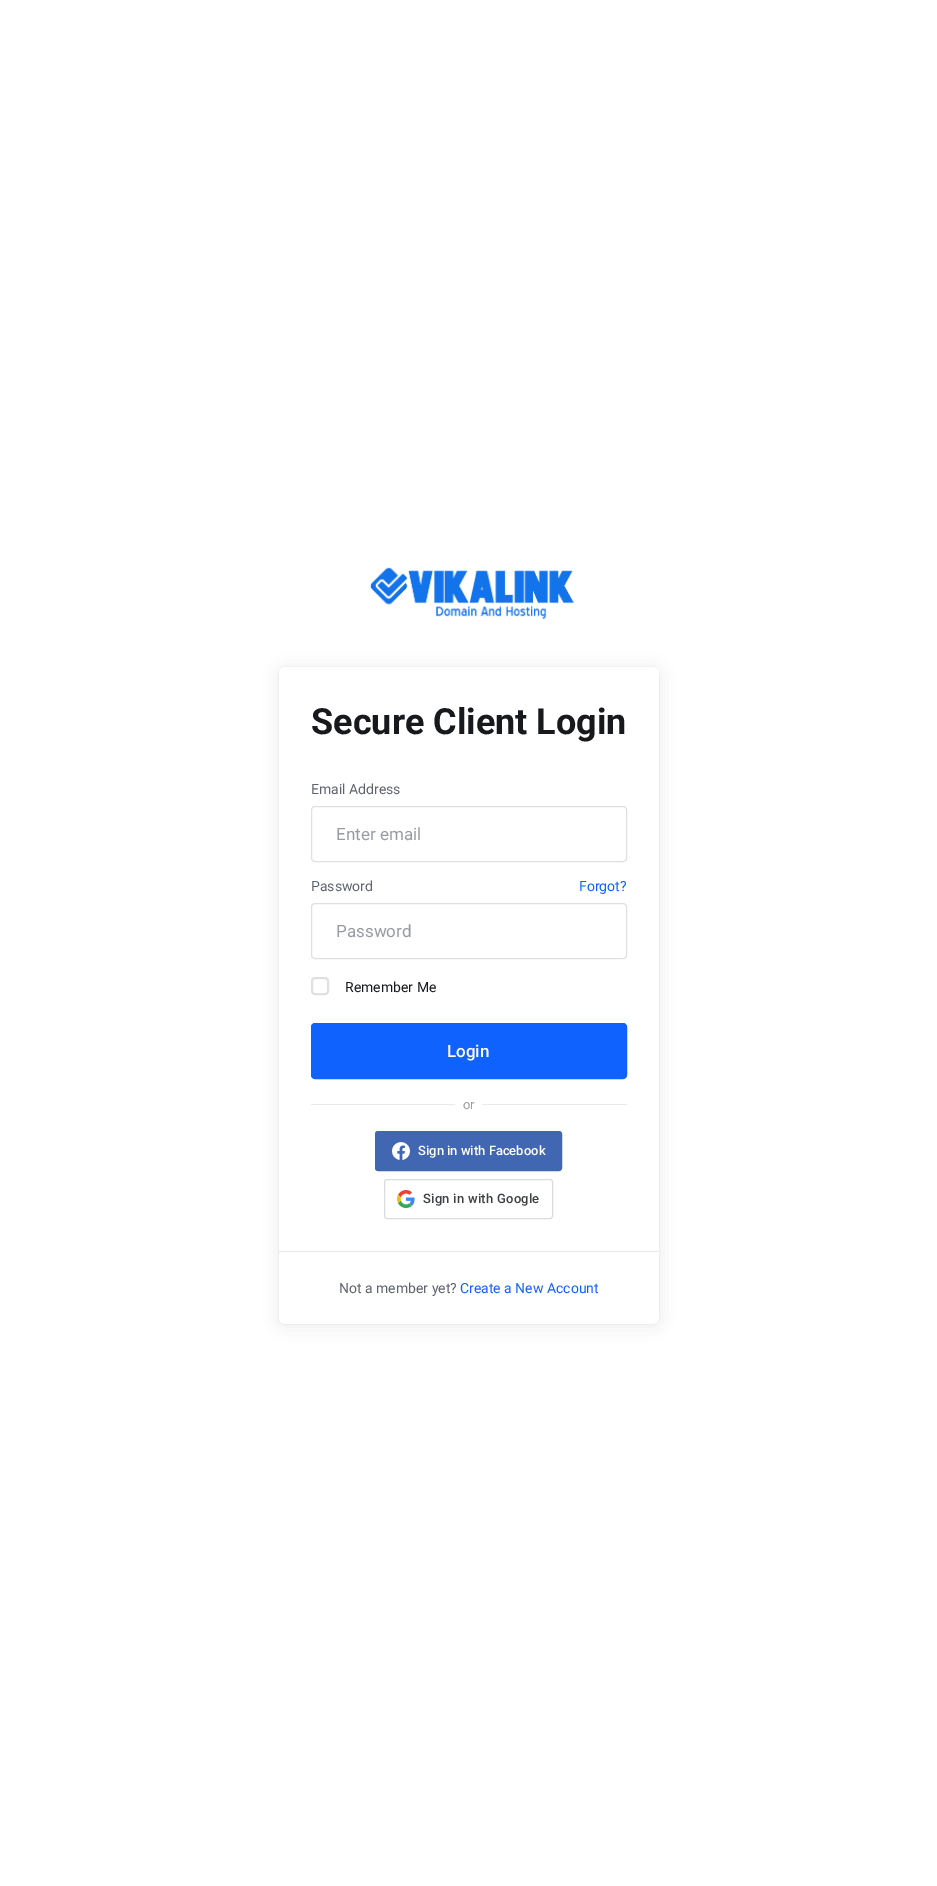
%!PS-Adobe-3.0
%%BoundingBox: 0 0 937 1886
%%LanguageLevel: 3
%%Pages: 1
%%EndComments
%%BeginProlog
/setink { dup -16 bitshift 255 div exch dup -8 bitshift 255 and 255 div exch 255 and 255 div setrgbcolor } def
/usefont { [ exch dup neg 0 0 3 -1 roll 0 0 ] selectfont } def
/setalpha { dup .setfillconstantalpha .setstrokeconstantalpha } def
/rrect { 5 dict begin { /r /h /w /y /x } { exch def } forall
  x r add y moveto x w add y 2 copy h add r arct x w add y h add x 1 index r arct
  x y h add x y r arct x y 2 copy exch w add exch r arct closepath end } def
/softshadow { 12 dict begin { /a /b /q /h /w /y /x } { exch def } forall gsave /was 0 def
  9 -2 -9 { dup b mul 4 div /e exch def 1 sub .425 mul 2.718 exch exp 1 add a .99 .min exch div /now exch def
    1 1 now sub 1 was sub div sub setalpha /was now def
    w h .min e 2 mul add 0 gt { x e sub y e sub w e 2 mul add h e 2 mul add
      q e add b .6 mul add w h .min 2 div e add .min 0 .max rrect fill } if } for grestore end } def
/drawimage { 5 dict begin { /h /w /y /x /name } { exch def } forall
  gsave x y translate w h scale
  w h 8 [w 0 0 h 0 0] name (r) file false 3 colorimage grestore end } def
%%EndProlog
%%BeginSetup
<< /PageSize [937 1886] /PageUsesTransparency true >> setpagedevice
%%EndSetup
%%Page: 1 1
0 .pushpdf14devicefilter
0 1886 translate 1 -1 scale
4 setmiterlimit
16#FFFFFF setink
0 0 937 1886 rectfill
(img1.raw) 370 567 204 52 drawimage
16#000000 setink
279 669 380 657 6 8 0.08 softshadow
279 667 380 657 6 0.5 0.1 softshadow
16#FFFFFF setink
279 667 380 657 6 rrect fill
/Roboto-Bold 36 usefont
16#17191C setink
311 734 moveto (Secure Client Login) show
/Roboto-Regular 14 usefont
16#5E636E setink
311 794 moveto (Email Address) show
16#DEE0E3 setink
311.5 806.5 315 55 3.5 rrect stroke
/Roboto-Regular 17 usefont
16#979BA4 setink
336 840 moveto (Enter email) show
/Roboto-Regular 14 usefont
16#5E636E setink
311 891 moveto (Password) show
16#1062FE setink
579 891 moveto (Forgot?) show
16#DEE0E3 setink
311.5 903.5 315 55 3.5 rrect stroke
/Roboto-Regular 17 usefont
16#979BA4 setink
336 937 moveto (Password) show
16#DEE0E3 setink
2 setlinewidth
312 978 16 16 3 rrect stroke
/Roboto-Regular 14 usefont
16#17191C setink
345 992 moveto (Remember Me) show
16#1062FE setink
311.5 1023.5 315 55 3.5 rrect gsave fill grestore
1 setlinewidth
stroke
/Roboto-Medium 17 usefont
16#FFFFFF setink
447 1057 moveto (Login) show
16#E9EAEC setink
311 1104 144 1 rectfill
/Roboto-Regular 13 usefont
16#979BA4 setink
463 1109 moveto (or) show
16#E9EAEC setink
482 1104 145 1 rectfill
16#4267B2 setink
375.5 1131.5 186 39 2.5 rrect gsave fill grestore
stroke
(img2.raw) 392 1142 18 18 drawimage
/Roboto-Medium 13 usefont
16#FFFFFF setink
418 1155 moveto (Sign in with Facebook) show
16#DADCE0 setink
384.5 1179.5 168 39 2.5 rrect stroke
(img3.raw) 397 1190 18 18 drawimage
16#3C4043 setink
423 1203 moveto 0.25 0 (Sign in with Google) ashow
16#E9EAEC setink
279 1251 380 1 rectfill
/Roboto-Regular 14 usefont
16#5E636E setink
339 1293 moveto (Not a member yet?) show
16#1062FE setink
460 1293 moveto (Create a New Account) show
.poppdf14devicefilter showpage
%%EOF
